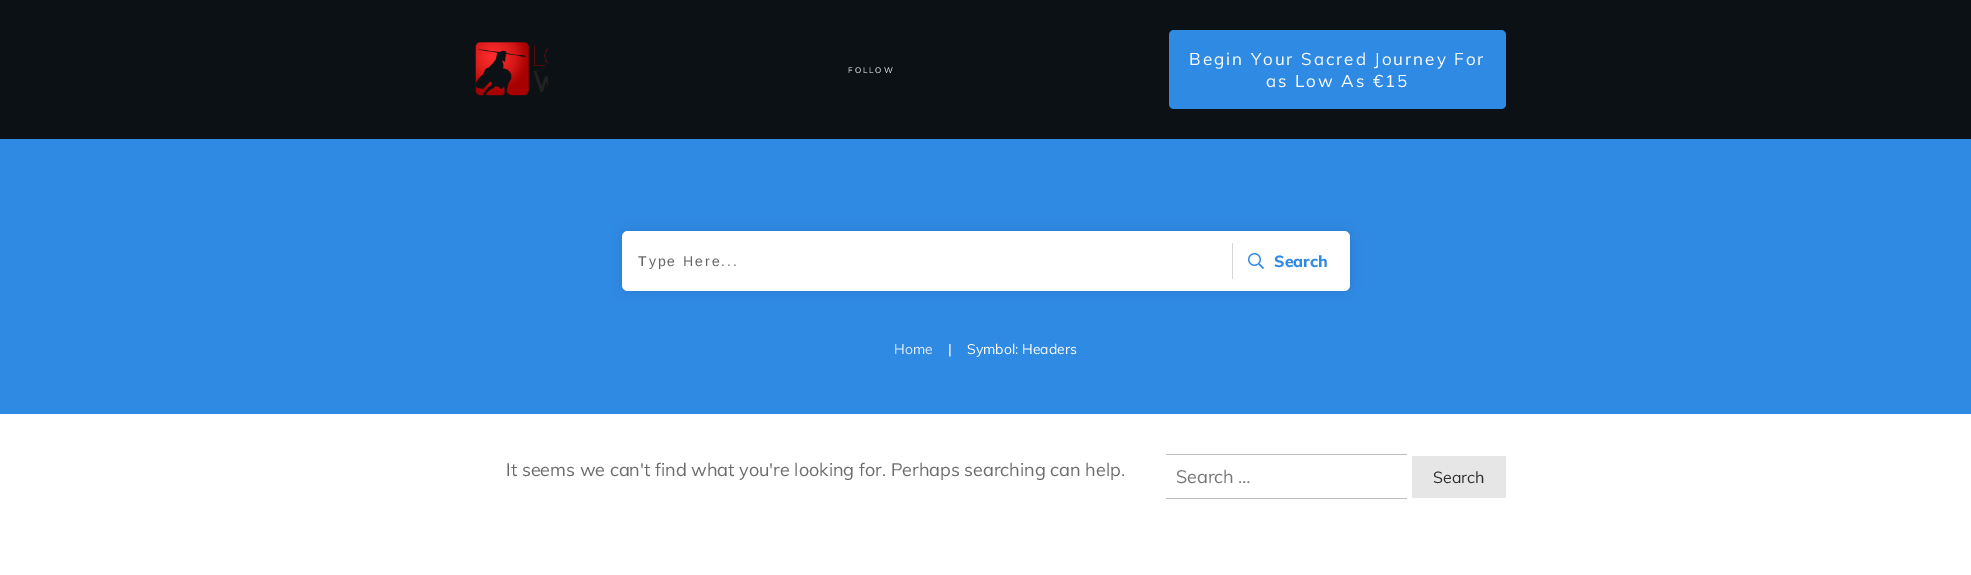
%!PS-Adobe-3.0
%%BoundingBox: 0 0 1971 575
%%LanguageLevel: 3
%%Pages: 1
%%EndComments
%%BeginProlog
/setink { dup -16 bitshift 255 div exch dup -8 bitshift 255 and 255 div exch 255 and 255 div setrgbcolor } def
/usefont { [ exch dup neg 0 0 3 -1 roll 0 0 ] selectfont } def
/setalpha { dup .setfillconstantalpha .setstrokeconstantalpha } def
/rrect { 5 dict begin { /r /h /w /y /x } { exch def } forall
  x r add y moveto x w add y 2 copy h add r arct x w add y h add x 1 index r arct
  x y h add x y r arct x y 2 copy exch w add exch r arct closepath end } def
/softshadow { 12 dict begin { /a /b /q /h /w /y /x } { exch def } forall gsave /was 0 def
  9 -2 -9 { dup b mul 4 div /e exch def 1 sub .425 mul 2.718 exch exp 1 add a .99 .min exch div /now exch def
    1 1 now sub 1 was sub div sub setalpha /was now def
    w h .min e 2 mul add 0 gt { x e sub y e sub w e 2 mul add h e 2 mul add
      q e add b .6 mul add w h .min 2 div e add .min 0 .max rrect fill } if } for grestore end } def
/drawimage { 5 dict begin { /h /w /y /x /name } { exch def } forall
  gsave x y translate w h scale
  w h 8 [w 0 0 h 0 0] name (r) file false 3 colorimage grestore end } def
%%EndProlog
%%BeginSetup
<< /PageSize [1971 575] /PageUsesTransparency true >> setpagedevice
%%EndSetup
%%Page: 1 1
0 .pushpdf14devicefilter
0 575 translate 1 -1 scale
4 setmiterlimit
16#FFFFFF setink
0 0 1971 575 rectfill
16#0C1115 setink
0 0 1971 139 rectfill
(img1.raw) 475 42 73 54 drawimage
/Muli-Regular 8 usefont
16#FFFFFF setink
848 73 moveto 2 0 (FOLLOW) ashow
16#2F8AE4 setink
1169 30 337 79 5 rrect fill
/Muli-Regular 17 usefont
16#FFFFFF setink
1189 65 moveto 2 0 (Begin Your Sacred Journey For) ashow
1266 87 moveto 2 0 (as Low As €15) ashow
16#2F8AE4 setink
0 139 1971 275 rectfill
16#000000 setink
622 231 728 60 6 5.5 0.08 softshadow
16#FFFFFF setink
622 231 728 60 6 rrect fill
/LiberationSans-Regular 14 usefont
16#666666 setink
638 266 moveto 2 0 (Type Here...) ashow
16#D6D6D6 setink
1232 243 1 36 rectfill
(img2.raw) 1248 253 16 16 drawimage
/Muli-ExtraBold 16 usefont
16#2F8AE4 setink
1274 267 moveto (Search) show
/Muli-Regular 14 usefont
16#E0EDFB setink
894 354 moveto (Home) show
16#FFFFFF setink
948 354 moveto (|) show
967 354 moveto (Symbol: Headers) show
/Muli-Regular 18 usefont
16#6A6B6C setink
506 476 moveto (It seems we can't find what you're looking for. Perhaps searching can help.) show
16#BFBFBF setink
1166 454 241 1 rectfill
1166 498 241 1 rectfill
16#757575 setink
1176 483 moveto (Search …) show
16#E6E6E6 setink
1412 456 94 42 rectfill
/Muli-Regular 16 usefont
16#2E2E2E setink
1433 483 moveto (Search) show
.poppdf14devicefilter showpage
%%EOF
